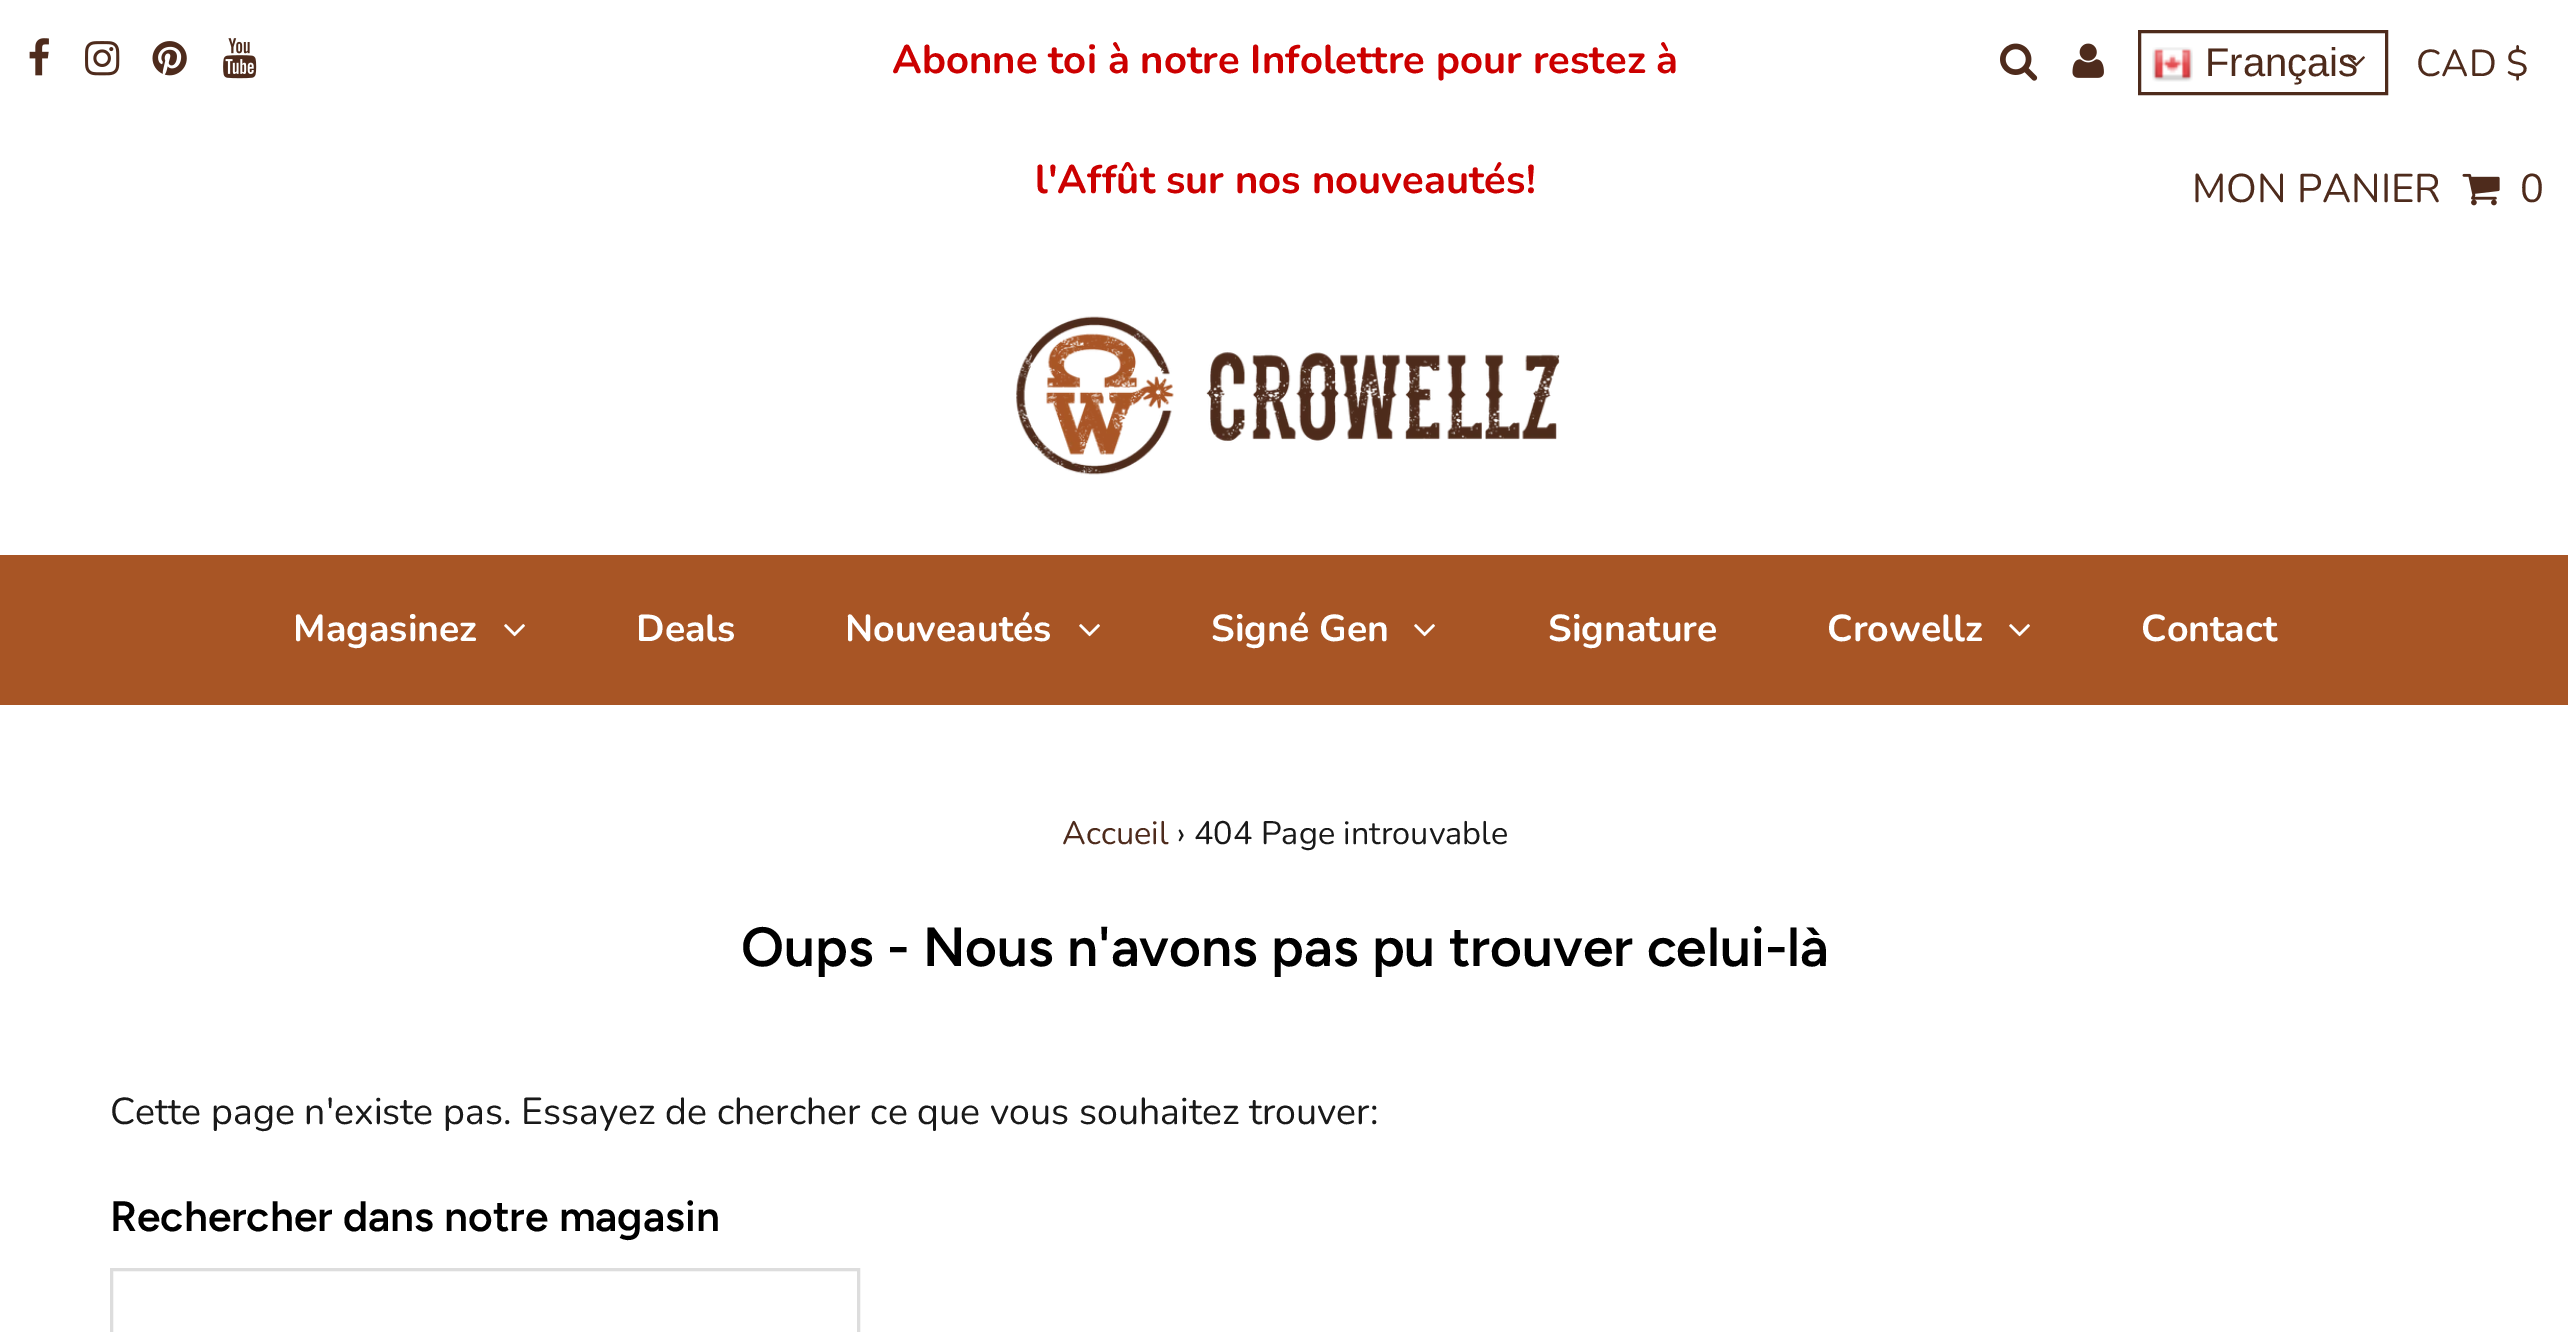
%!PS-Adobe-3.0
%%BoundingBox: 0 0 2568 1332
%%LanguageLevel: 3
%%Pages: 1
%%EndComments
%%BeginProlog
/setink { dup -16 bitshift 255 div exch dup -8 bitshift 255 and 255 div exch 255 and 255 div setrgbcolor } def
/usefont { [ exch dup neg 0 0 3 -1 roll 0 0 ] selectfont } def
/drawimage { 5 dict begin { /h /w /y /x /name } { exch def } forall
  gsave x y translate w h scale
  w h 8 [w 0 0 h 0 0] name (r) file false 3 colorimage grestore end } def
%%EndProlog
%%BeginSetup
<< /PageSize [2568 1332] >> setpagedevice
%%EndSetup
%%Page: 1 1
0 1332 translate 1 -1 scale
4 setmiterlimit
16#FFFFFF setink
0 0 2568 1332 rectfill
(img1.raw) 29 38 20 38 drawimage
(img2.raw) 85 41 35 35 drawimage
(img3.raw) 152 41 35 35 drawimage
(img4.raw) 223 38 34 41 drawimage
/Nunito-Bold 40 usefont
16#CC0000 setink
892 73 moveto (Abonne toi à notre Infolettre pour restez à) show
1035 193 moveto (l'Affût sur nos nouveautés!) show
(img5.raw) 2000 43 38 38 drawimage
(img6.raw) 2072 43 32 35 drawimage
16#4E2B1C setink
3 setlinewidth
2139.5 31.5 247 62 rectstroke
(img7.raw) 2152 47 41 35 drawimage
/LiberationSans-Regular 40 usefont
2205 76 moveto (Français) show
(img8.raw) 2348 56 17 11 drawimage
/Nunito-Regular 37.5 usefont
2416 76 moveto (CAD $) show
/Nunito-Regular 40 usefont
2192 202 moveto (MON PANIER) show
(img9.raw) 2462 173 38 33 drawimage
2520 202 moveto (0) show
(img10.raw) 1016 316 544 159 drawimage
16#A85525 setink
0 555 2568 150 rectfill
/Nunito-Bold 37.5 usefont
16#FFFFFF setink
293 641 moveto (Magasinez) show
(img11.raw) 504 624 21 13 drawimage
636 641 moveto (Deals) show
845 641 moveto (Nouveautés) show
(img11.raw) 1079 624 21 13 drawimage
1211 641 moveto (Signé Gen) show
(img11.raw) 1414 624 21 13 drawimage
1548 641 moveto (Signature) show
1827 641 moveto (Crowellz) show
(img11.raw) 2009 624 21 13 drawimage
2141 641 moveto (Contact) show
/Nunito-Regular 32.5 usefont
16#4E2B1C setink
1062 844 moveto (Accueil) show
16#191919 setink
1177 844 moveto (› 404 Page introuvable) show
/Figtree-SemiBold 55 usefont
16#000000 setink
741 966 moveto (Oups - Nous n'avons pas pu trouver celui-là) show
/Nunito-Regular 37.5 usefont
16#191919 setink
110 1124 moveto (Cette page n'existe pas. Essayez de chercher ce que vous souhaitez trouver:) show
/Figtree-SemiBold 42.5 usefont
16#000000 setink
110 1231 moveto (Rechercher dans notre magasin) show
16#DDDDDD setink
111.5 1269.5 747 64 rectstroke
showpage
%%EOF
